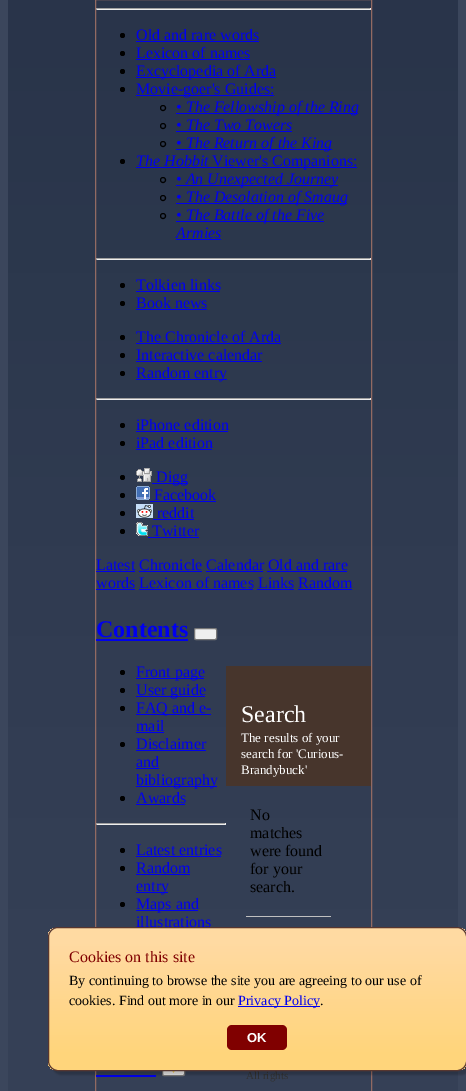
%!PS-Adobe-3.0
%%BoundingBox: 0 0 466 1091
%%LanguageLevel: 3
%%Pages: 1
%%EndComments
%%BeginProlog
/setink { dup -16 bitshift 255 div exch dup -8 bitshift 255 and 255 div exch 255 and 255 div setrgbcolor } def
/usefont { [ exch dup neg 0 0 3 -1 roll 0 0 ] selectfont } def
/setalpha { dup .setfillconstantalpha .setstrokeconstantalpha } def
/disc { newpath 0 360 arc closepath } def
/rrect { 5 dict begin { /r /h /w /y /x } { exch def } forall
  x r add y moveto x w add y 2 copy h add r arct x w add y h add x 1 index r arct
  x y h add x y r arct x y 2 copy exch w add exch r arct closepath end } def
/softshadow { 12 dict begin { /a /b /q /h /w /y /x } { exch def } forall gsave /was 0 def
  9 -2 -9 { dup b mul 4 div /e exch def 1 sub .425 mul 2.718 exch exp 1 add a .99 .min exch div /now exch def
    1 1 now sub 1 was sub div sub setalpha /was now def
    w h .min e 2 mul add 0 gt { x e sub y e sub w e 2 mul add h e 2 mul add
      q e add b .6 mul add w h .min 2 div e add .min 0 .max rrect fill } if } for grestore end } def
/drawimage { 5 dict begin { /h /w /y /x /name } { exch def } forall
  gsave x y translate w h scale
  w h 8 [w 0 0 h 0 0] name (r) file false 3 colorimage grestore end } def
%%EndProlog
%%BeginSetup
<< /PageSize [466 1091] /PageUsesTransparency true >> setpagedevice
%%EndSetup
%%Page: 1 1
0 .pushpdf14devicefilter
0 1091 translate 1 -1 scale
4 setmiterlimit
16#3B465C setink
0 0 466 1091 rectfill
gsave 8 0 moveto 458 0 lineto 458 1091 lineto 8 1091 lineto closepath clip newpath
<< /ShadingType 2 /ColorSpace /DeviceRGB /Coords [233 -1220 233 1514] /Extend [true true] /Function << /FunctionType 2 /Domain [0 1] /C0 [0.106 0.149 0.235] /C1 [0.231 0.275 0.361] /N 1 >> >> shfill grestore
16#926A62 setink
95.5 -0.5 276 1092 rectstroke
[
    [96 8 275 1 16#9F9F9F]
    [370 8 1 2 16#EEEEEE]
    [96 9 275 1 16#EEEEEE]
    [96 8 1 2 16#9F9F9F]
] { aload pop setink rectfill } forall
16#000000 setink
122.5 35.5 2.5 disc fill
/LiberationSerif-Regular 16 usefont
16#0000EE setink
136 40 moveto (Old and rare words) show
136 41 123 1 rectfill
16#000000 setink
122.5 53.5 2.5 disc fill
16#0000EE setink
136 58 moveto (Lexicon of names) show
136 59 114 1 rectfill
16#000000 setink
122.5 71.5 2.5 disc fill
16#0000EE setink
136 77 140 1 rectfill
136 76 moveto (Excyclopedia of Arda) show
16#000000 setink
122.5 89.5 2.5 disc fill
16#0000EE setink
136 95 138 1 rectfill
136 94 moveto (Movie-goer's Guides:) show
16#000000 setink
163 108 2.5 disc stroke
16#0000EE setink
176 113 182 1 rectfill
/LiberationSerif-Italic 16 usefont
176 112 moveto (• The Fellowship of the Ring) show
16#000000 setink
163 126 2.5 disc stroke
16#0000EE setink
176 130 moveto (• The Two Towers) show
176 131 116 1 rectfill
16#000000 setink
163 144 2.5 disc stroke
16#0000EE setink
176 149 156 1 rectfill
176 148 moveto (• The Return of the King) show
16#000000 setink
122.5 161.5 2.5 disc fill
16#0000EE setink
136 166 moveto (The Hobbit) show
136 167 221 1 rectfill
/LiberationSerif-Regular 16 usefont
212 166 moveto (Viewer's Companions:) show
16#000000 setink
163 180 2.5 disc stroke
16#0000EE setink
176 185 162 1 rectfill
/LiberationSerif-Italic 16 usefont
176 184 moveto (• An Unexpected Journey) show
16#000000 setink
163 198 2.5 disc stroke
16#0000EE setink
176 203 171 1 rectfill
176 202 moveto (• The Desolation of Smaug) show
16#000000 setink
163 216 2.5 disc stroke
16#0000EE setink
176 221 148 1 rectfill
176 220 moveto (• The Battle of the Five) show
176 238 moveto (Armies) show
[
    [176 239 45 1 16#0000EE]
    [96 258 275 1 16#9F9F9F]
    [370 258 1 2 16#EEEEEE]
    [96 259 275 1 16#EEEEEE]
    [96 258 1 2 16#9F9F9F]
] { aload pop setink rectfill } forall
16#000000 setink
122.5 285.5 2.5 disc fill
/LiberationSerif-Regular 16 usefont
16#0000EE setink
136 290 moveto (Tolkien links) show
136 291 84 1 rectfill
16#000000 setink
122.5 303.5 2.5 disc fill
16#0000EE setink
136 308 moveto (Book news) show
136 309 71 1 rectfill
16#000000 setink
122.5 337.5 2.5 disc fill
16#0000EE setink
136 342 moveto (The Chronicle of Arda) show
136 343 145 1 rectfill
16#000000 setink
122.5 355.5 2.5 disc fill
16#0000EE setink
136 360 moveto (Interactive calendar) show
136 361 126 1 rectfill
16#000000 setink
122.5 373.5 2.5 disc fill
16#0000EE setink
136 379 91 1 rectfill
136 378 moveto (Random entry) show
[
    [96 398 275 1 16#9F9F9F]
    [370 398 1 2 16#EEEEEE]
    [96 399 275 1 16#EEEEEE]
    [96 398 1 2 16#9F9F9F]
] { aload pop setink rectfill } forall
16#000000 setink
122.5 425.5 2.5 disc fill
16#0000EE setink
136 430 moveto (iPhone edition) show
136 431 92 1 rectfill
16#000000 setink
122.5 443.5 2.5 disc fill
16#0000EE setink
136 448 moveto (iPad edition) show
136 449 76 1 rectfill
16#000000 setink
122.5 477.5 2.5 disc fill
(img1.raw) 136 468 16 14 drawimage
16#0000EE setink
152 483 36 1 rectfill
156 482 moveto (Digg) show
16#000000 setink
122.5 495.5 2.5 disc fill
(img2.raw) 136 486 14 14 drawimage
16#0000EE setink
154 500 moveto (Facebook) show
150 501 66 1 rectfill
16#000000 setink
122.5 513.5 2.5 disc fill
(img3.raw) 136 504 17 14 drawimage
16#0000EE setink
157 518 moveto (reddit) show
153 519 41 1 rectfill
16#000000 setink
122.5 531.5 2.5 disc fill
(img4.raw) 136 522 12 14 drawimage
16#0000EE setink
152 536 moveto (Twitter) show
148 537 51 1 rectfill
96 570 moveto (Latest Chronicle Calendar Old and rare) show
[
    [96 571 39 1 16#0000EE]
    [139 571 63 1 16#0000EE]
    [206 571 57 1 16#0000EE]
] { aload pop setink rectfill } forall
96 588 moveto (words Lexicon of names Links Random) show
[
    [267 571 80 1 16#0000EE]
    [96 589 39 1 16#0000EE]
    [139 589 114 1 16#0000EE]
    [257 589 37 1 16#0000EE]
    [298 589 54 1 16#0000EE]
] { aload pop setink rectfill } forall
/LiberationSerif-Bold 24 usefont
96 637 moveto (Contents) show
96 639 92 2 rectfill
16#EFEFEF setink
194.5 628.5 22 11 1.5 rrect gsave fill grestore
16#767676 setink
stroke
16#000000 setink
122.5 672.5 2.5 disc fill
16#0000EE setink
136 678 68 1 rectfill
/LiberationSerif-Regular 16 usefont
136 677 moveto (Front page) show
16#000000 setink
122.5 690.5 2.5 disc fill
16#0000EE setink
136 696 69 1 rectfill
136 695 moveto (User guide) show
16#000000 setink
122.5 708.5 2.5 disc fill
16#0000EE setink
136 714 75 1 rectfill
136 713 moveto (FAQ and e-) show
136 731 moveto (mail) show
136 732 28 1 rectfill
16#000000 setink
122.5 744.5 2.5 disc fill
16#0000EE setink
136 749 moveto (Disclaimer) show
136 750 70 1 rectfill
136 767 moveto (and) show
136 768 23 1 rectfill
136 786 81 1 rectfill
136 785 moveto (bibliography) show
16#000000 setink
122.5 798.5 2.5 disc fill
16#0000EE setink
136 803 moveto (Awards) show
[
    [136 804 49 1 16#0000EE]
    [96 823 130 1 16#9F9F9F]
    [225 823 1 2 16#EEEEEE]
    [96 824 130 1 16#EEEEEE]
    [96 823 1 2 16#9F9F9F]
] { aload pop setink rectfill } forall
16#000000 setink
122.5 850.5 2.5 disc fill
16#0000EE setink
136 855 moveto (Latest entries) show
136 856 85 1 rectfill
16#000000 setink
122.5 868.5 2.5 disc fill
16#0000EE setink
136 873 moveto (Random) show
136 874 54 1 rectfill
136 892 32 1 rectfill
136 891 moveto (entry) show
16#000000 setink
122.5 904.5 2.5 disc fill
16#0000EE setink
136 910 62 1 rectfill
136 909 moveto (Maps and) show
136 927 moveto (illustrations) show
96 1075 60 2 rectfill
16#EFEFEF setink
162.5 1064.5 22 11 1.5 rrect gsave fill grestore
16#767676 setink
stroke
(img5.raw) 172 1071 3 2 drawimage
16#47352C setink
226 666 145 120 rectfill
/LiberationSerif-Regular 24 usefont
16#FFFFFF setink
241 722 moveto (Search) show
/LiberationSerif-Regular 13 usefont
[
    [(The results of your) 241 742]
    [(search for 'Curious-) 241 758]
    [(Brandybuck') 241 774]
] { aload pop moveto show } forall
/LiberationSerif-Regular 16 usefont
16#000000 setink
[
    [(No) 250 820]
    [(matches) 250 838]
    [(were found) 250 856]
    [(for your) 250 874]
    [(search.) 250 892]
] { aload pop moveto show } forall
16#C0C0C0 setink
246 916 85 1 rectfill
/LiberationSerif-Regular 11 usefont
16#303030 setink
246 1079 moveto (All rights) show
16#000000 setink
52 931 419 144 10 1 0.2 softshadow
gsave
48 927 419 144 10 rrect clip newpath
gsave 48 928 moveto 466 928 lineto 466 1070 lineto 48 1070 lineto closepath clip newpath
<< /ShadingType 2 /ColorSpace /DeviceRGB /Coords [49 928 49 1070] /Extend [true true] /Function << /FunctionType 3 /Domain [0 1] /Functions [<< /FunctionType 2 /Domain [0 1] /C0 [1 0.855 0.635] /C1 [1 0.855 0.635] /N 1 >> << /FunctionType 2 /Domain [0 1] /C0 [1 0.855 0.635] /C1 [1 0.835 0.482] /N 1 >> << /FunctionType 2 /Domain [0 1] /C0 [1 0.835 0.482] /C1 [1 0.835 0.482] /N 1 >>] /Bounds [0.1 0.9] /Encode [0 1 0 1 0 1] >> >> shfill grestore
grestore
16#57362F setink
48.5 927.5 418 143 9.5 rrect stroke
/LiberationSerif-Regular 16 usefont
16#800000 setink
69 962 moveto (Cookies on this site) show
/LiberationSerif-Regular 14 usefont
16#000000 setink
69 985 moveto (By continuing to browse the site you are agreeing to our use of) show
69 1005 moveto (cookies. Find out more in our) show
16#0000EE setink
238 1006 82 1 rectfill
238 1005 moveto (Privacy Policy) show
16#000000 setink
320 1005 moveto (.) show
16#800000 setink
227 1025 60 25 5 rrect fill
/LiberationSans-Bold 13 usefont
16#FFFFFF setink
247 1042 moveto (OK) show
.poppdf14devicefilter showpage
%%EOF
